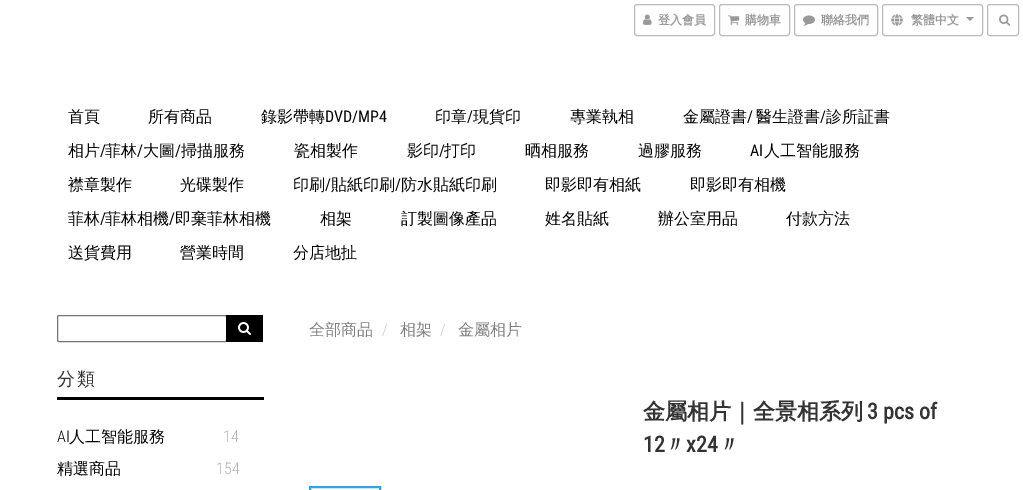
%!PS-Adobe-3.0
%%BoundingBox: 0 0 1023 490
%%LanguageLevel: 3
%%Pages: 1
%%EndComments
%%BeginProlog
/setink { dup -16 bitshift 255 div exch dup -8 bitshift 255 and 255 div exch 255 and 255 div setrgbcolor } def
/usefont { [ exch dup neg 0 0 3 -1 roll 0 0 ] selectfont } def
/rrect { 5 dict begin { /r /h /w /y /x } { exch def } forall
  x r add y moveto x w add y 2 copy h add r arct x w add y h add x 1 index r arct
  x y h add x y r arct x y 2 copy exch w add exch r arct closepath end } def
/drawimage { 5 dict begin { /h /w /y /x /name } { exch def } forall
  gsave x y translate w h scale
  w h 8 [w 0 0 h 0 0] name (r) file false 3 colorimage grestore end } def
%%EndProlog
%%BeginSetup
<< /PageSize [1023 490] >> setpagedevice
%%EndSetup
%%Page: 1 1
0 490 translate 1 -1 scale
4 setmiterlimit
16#FFFFFF setink
0 0 1023 490 rectfill
16#BBBBBB setink
634.5 4.5 80 31 2.5 rrect stroke
(img1.raw) 643 14 9 11 drawimage
/WenQuanYiZenHei-Bold 12 usefont
16#999999 setink
658 24 moveto (登入會員) show
16#BBBBBB setink
719.5 4.5 70 31 2.5 rrect stroke
(img2.raw) 728 15 12 10 drawimage
16#999999 setink
745 24 moveto (購物車) show
16#BBBBBB setink
794.5 4.5 83 31 2.5 rrect stroke
(img3.raw) 803 15 12 11 drawimage
16#999999 setink
821 24 moveto (聯絡我們) show
16#BBBBBB setink
882.5 4.5 100 31 2.5 rrect stroke
(img4.raw) 891 14 12 12 drawimage
16#999999 setink
911 24 moveto (繁體中文) show
966 17 moveto 974 17 lineto 970 21 lineto closepath fill
16#BBBBBB setink
987.5 4.5 31 31 2.5 rrect stroke
(img5.raw) 999 14 11 12 drawimage
/WenQuanYiZenHei-Medium 16 usefont
16#000000 setink
[
    [(首頁) 68 122]
    [(所有商品) 148 122]
    [(錄影帶轉) 261 122]
] { aload pop moveto show } forall
/RobotoCondensed-Regular 16 usefont
325 122 moveto (DVD/MP4) show
/WenQuanYiZenHei-Medium 16 usefont
435 122 moveto (印章) show
/RobotoCondensed-Regular 16 usefont
467 122 moveto (/) show
/WenQuanYiZenHei-Medium 16 usefont
[
    [(現貨印) 473 122]
    [(專業執相) 570 122]
    [(金屬證書) 683 122]
] { aload pop moveto show } forall
/RobotoCondensed-Regular 16 usefont
747 122 moveto (/) show
/WenQuanYiZenHei-Medium 16 usefont
756 122 moveto (醫生證書) show
/RobotoCondensed-Regular 16 usefont
820 122 moveto (/) show
/WenQuanYiZenHei-Medium 16 usefont
826 122 moveto (診所証書) show
68 156 moveto (相片) show
/RobotoCondensed-Regular 16 usefont
100 156 moveto (/) show
/WenQuanYiZenHei-Medium 16 usefont
105 156 moveto (菲林) show
/RobotoCondensed-Regular 16 usefont
137 156 moveto (/) show
/WenQuanYiZenHei-Medium 16 usefont
143 156 moveto (大圖) show
/RobotoCondensed-Regular 16 usefont
175 156 moveto (/) show
/WenQuanYiZenHei-Medium 16 usefont
[
    [(掃描服務) 181 156]
    [(瓷相製作) 294 156]
    [(影印) 407 156]
] { aload pop moveto show } forall
/RobotoCondensed-Regular 16 usefont
439 156 moveto (/) show
/WenQuanYiZenHei-Medium 16 usefont
[
    [(打印) 444 156]
    [(晒相服務) 525 156]
    [(過膠服務) 638 156]
] { aload pop moveto show } forall
/RobotoCondensed-Regular 16 usefont
750 156 moveto (AI) show
/WenQuanYiZenHei-Medium 16 usefont
[
    [(人工智能服務) 764 156]
    [(襟章製作) 68 190]
    [(光碟製作) 180 190]
    [(印刷) 293 190]
] { aload pop moveto show } forall
/RobotoCondensed-Regular 16 usefont
325 190 moveto (/) show
/WenQuanYiZenHei-Medium 16 usefont
331 190 moveto (貼紙印刷) show
/RobotoCondensed-Regular 16 usefont
395 190 moveto (/) show
/WenQuanYiZenHei-Medium 16 usefont
[
    [(防水貼紙印刷) 401 190]
    [(即影即有相紙) 545 190]
    [(即影即有相機) 690 190]
    [(菲林) 68 224]
] { aload pop moveto show } forall
/RobotoCondensed-Regular 16 usefont
100 224 moveto (/) show
/WenQuanYiZenHei-Medium 16 usefont
105 224 moveto (菲林相機) show
/RobotoCondensed-Regular 16 usefont
169 224 moveto (/) show
/WenQuanYiZenHei-Medium 16 usefont
[
    [(即棄菲林相機) 175 224]
    [(相架) 320 224]
    [(訂製圖像產品) 401 224]
    [(姓名貼紙) 545 224]
    [(辦公室用品) 658 224]
    [(付款方法) 786 224]
    [(送貨費用) 68 258]
    [(營業時間) 180 258]
    [(分店地扯) 293 258]
] { aload pop moveto show } forall
16#767676 setink
57.5 315.5 169 26 1.5 rrect stroke
16#000000 setink
226 315 37 27 rectfill
(img6.raw) 238 322 13 13 drawimage
57 397 207 3 rectfill
/WenQuanYiZenHei-Medium 18 usefont
16#333333 setink
57 385 moveto 2 0 (分類) ashow
/RobotoCondensed-Light 16 usefont
16#000000 setink
57 442 moveto (AI) show
/WenQuanYiZenHei-Medium 16 usefont
69 442 moveto (人工智能服務) show
/RobotoCondensed-Light 16 usefont
16#B3B3B3 setink
223 442 moveto (14) show
/WenQuanYiZenHei-Medium 16 usefont
16#000000 setink
57 474 moveto (精選商品) show
/RobotoCondensed-Light 16 usefont
16#B3B3B3 setink
216 474 moveto (154) show
/WenQuanYiZenHei-Medium 16 usefont
16#808080 setink
309 335 moveto (全部商品) show
/RobotoCondensed-Light 16 usefont
16#CCCCCC setink
382 335 moveto (/) show
/WenQuanYiZenHei-Medium 16 usefont
16#808080 setink
400 335 moveto (相架) show
/RobotoCondensed-Light 16 usefont
16#CCCCCC setink
440 335 moveto (/) show
/WenQuanYiZenHei-Medium 16 usefont
16#808080 setink
458 335 moveto (金屬相片) show
/WenQuanYiZenHei-Bold 22 usefont
16#333333 setink
643 419 moveto (金屬相片｜全景相系列) show
/RobotoCondensed-Bold 22 usefont
867 419 moveto (3 pcs of) show
643 452 moveto (12) show
/WenQuanYiZenHei-Bold 22 usefont
664 452 moveto (〃) show
/RobotoCondensed-Bold 22 usefont
686 452 moveto (x24) show
/WenQuanYiZenHei-Bold 22 usefont
718 452 moveto (〃) show
16#30A4E1 setink
2 setlinewidth
310 487 70 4 rectstroke
showpage
%%EOF
